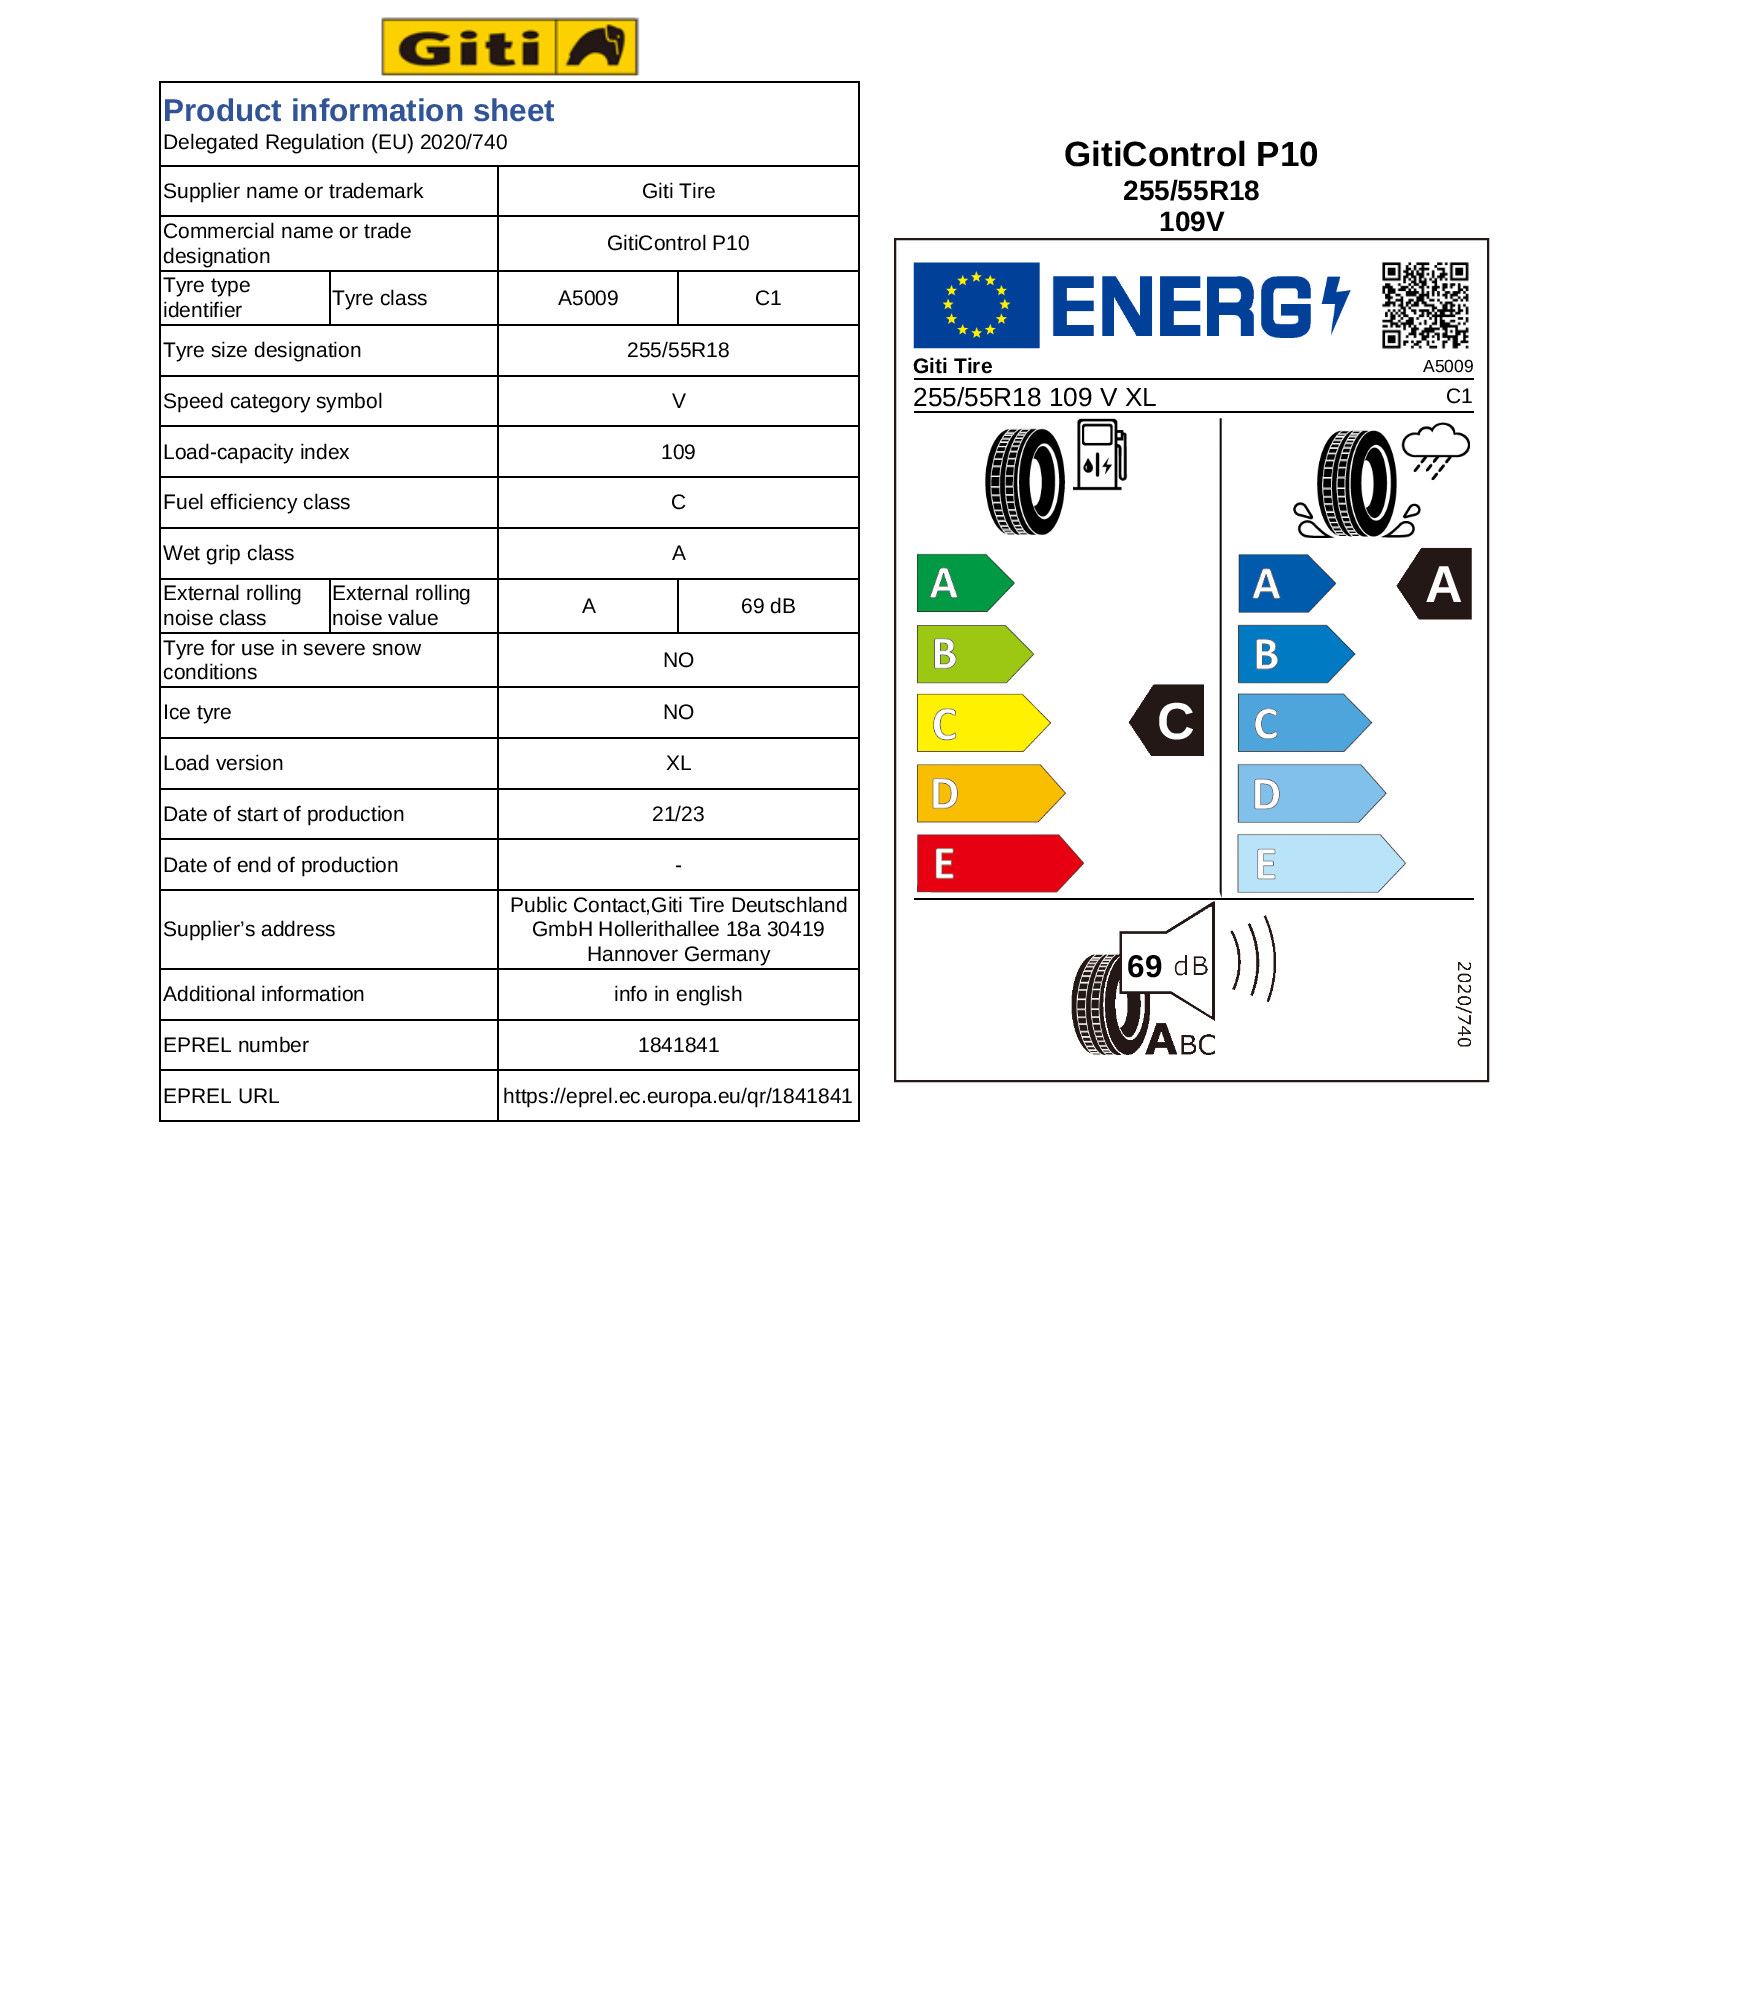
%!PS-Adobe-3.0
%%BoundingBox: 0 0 1753 1997
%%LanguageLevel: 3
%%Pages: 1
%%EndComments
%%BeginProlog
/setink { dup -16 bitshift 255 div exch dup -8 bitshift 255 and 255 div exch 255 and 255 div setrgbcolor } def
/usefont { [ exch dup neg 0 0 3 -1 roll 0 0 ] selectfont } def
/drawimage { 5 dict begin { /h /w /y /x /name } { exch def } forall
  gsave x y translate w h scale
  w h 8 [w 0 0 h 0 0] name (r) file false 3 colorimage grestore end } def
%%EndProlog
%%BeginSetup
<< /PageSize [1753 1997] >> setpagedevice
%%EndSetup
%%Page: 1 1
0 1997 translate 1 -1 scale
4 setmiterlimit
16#FFFFFF setink
0 0 1753 1997 rectfill
(img1.raw) 381 17 259 59 drawimage
[
    [159 81 700 2 16#000000]
    [858 81 2 1041 16#000000]
    [159 1120 700 2 16#000000]
    [159 81 2 1041 16#000000]
] { aload pop setink rectfill } forall
/LiberationSans-Bold 31.5 usefont
16#305496 setink
163 121 moveto (Product information sheet) show
/LiberationSans-Regular 21 usefont
16#000000 setink
163 149 moveto (Delegated Regulation \(EU\) 2020/740) show
[
    [497 165 362 2 16#000000]
    [497 215 362 2 16#000000]
    [677 270 182 2 16#000000]
    [497 324 362 2 16#000000]
    [677 270 2 56 16#000000]
    [497 270 182 2 16#000000]
    [497 375 362 2 16#000000]
    [497 425 362 2 16#000000]
    [497 476 362 2 16#000000]
    [497 527 362 2 16#000000]
    [677 578 182 2 16#000000]
    [497 632 362 2 16#000000]
    [677 578 2 56 16#000000]
    [497 578 182 2 16#000000]
    [497 686 362 2 16#000000]
    [497 737 362 2 16#000000]
    [497 788 362 2 16#000000]
    [497 838 362 2 16#000000]
    [497 889 362 2 16#000000]
    [497 968 362 2 16#000000]
    [497 1019 362 2 16#000000]
    [497 1069 362 2 16#000000]
    [497 1069 2 53 16#000000]
    [159 1069 340 2 16#000000]
    [497 1019 2 52 16#000000]
    [159 1019 340 2 16#000000]
    [497 968 2 52 16#000000]
    [159 968 340 2 16#000000]
    [497 889 2 81 16#000000]
    [159 889 340 2 16#000000]
    [497 838 2 53 16#000000]
    [159 838 340 2 16#000000]
    [497 788 2 52 16#000000]
    [159 788 340 2 16#000000]
    [497 737 2 52 16#000000]
    [159 737 340 2 16#000000]
    [497 686 2 53 16#000000]
    [159 686 340 2 16#000000]
    [497 632 2 56 16#000000]
    [159 632 340 2 16#000000]
    [497 578 2 56 16#000000]
    [329 578 170 2 16#000000]
    [497 527 2 52 16#000000]
    [159 527 340 2 16#000000]
    [497 476 2 53 16#000000]
    [159 476 340 2 16#000000]
    [497 425 2 53 16#000000]
    [159 425 340 2 16#000000]
    [497 375 2 52 16#000000]
    [159 375 340 2 16#000000]
    [497 324 2 52 16#000000]
    [159 324 340 2 16#000000]
    [497 270 2 56 16#000000]
    [329 270 170 2 16#000000]
    [497 215 2 56 16#000000]
    [159 215 340 2 16#000000]
    [497 165 2 52 16#000000]
    [159 165 340 2 16#000000]
] { aload pop setink rectfill } forall
[
    [(Supplier name or trademark) 163 198]
    [(Giti Tire) 642 198]
    [(Commercial name or trade) 163 238]
    [(designation) 163 263]
    [(GitiControl P10) 607 250]
] { aload pop moveto show } forall
329 270 2 56 rectfill
159 270 172 2 rectfill
[
    [(Tyre type) 163 292]
    [(identifier) 163 317]
    [(Tyre class) 332 305]
    [(A5009) 558 305]
    [(C1) 755 305]
    [(Tyre size designation) 163 357]
    [(255/55R18) 627 357]
    [(Speed category symbol) 163 408]
    [(V) 672 408]
    [(Load-capacity index) 163 459]
    [(109) 661 459]
    [(Fuel efficiency class) 163 509]
    [(C) 671 509]
    [(Wet grip class) 163 560]
    [(A) 672 560]
] { aload pop moveto show } forall
329 578 2 56 rectfill
159 578 172 2 rectfill
[
    [(External rolling) 163 600]
    [(noise class) 163 625]
    [(External rolling) 332 600]
    [(noise value) 332 625]
    [(A) 582 613]
    [(69 dB) 741 613]
    [(Tyre for use in severe snow) 163 655]
    [(conditions) 163 679]
    [(NO) 663 667]
    [(Ice tyre) 163 719]
    [(NO) 663 719]
    [(Load version) 163 770]
    [(XL) 666 770]
    [(Date of start of production) 163 821]
    [(21/23) 652 821]
    [(Date of end of production) 163 872]
    [(-) 675 872]
    [(Supplier’s address) 163 936]
    [(Public Contact,Giti Tire Deutschland) 510 912]
    [(GmbH Hollerithallee 18a 30419) 532 936]
    [(Hannover Germany) 587 961]
    [(Additional information) 163 1001]
    [(info in english) 614 1001]
    [(EPREL number) 163 1052]
    [(1841841) 638 1052]
    [(EPREL URL) 163 1103]
    [(https://eprel.ec.europa.eu/qr/1841841) 503 1103]
] { aload pop moveto show } forall
/LiberationSans-Bold 35 usefont
1064 166 moveto (GitiControl P10) show
/LiberationSans-Bold 28 usefont
1123 200 moveto (255/55R18) show
1159 231 moveto (109V) show
16#221815 setink
2 setlinewidth
895 239 593 842 rectstroke
(img2.raw) 913 262 438 87 drawimage
(img3.raw) 1382 262 87 87 drawimage
/LiberationSans-Bold 21 usefont
16#000000 setink
913 373 moveto (Giti Tire) show
/LiberationSans-Regular 17.5 usefont
1423 372 moveto (A5009) show
914 378 560 2 rectfill
/LiberationSans-Regular 26.25 usefont
913 406 moveto (255/55R18 109 V XL) show
/LiberationSans-Regular 21 usefont
1446 403 moveto (C1) show
914 411 560 2 rectfill
(img4.raw) 917 418 553 480 drawimage
(img5.raw) 1396 547 76 73 drawimage
/LiberationSans-Bold 52 usefont
16#FFFFFF setink
1425 602 moveto (A) show
(img6.raw) 1128 684 76 72 drawimage
1157 739 moveto (C) show
16#000000 setink
914 898 560 2 rectfill
(img7.raw) 1071 901 401 154 drawimage
/LiberationSans-Bold 31.5 usefont
1127 977 moveto (69) show
showpage
%%EOF
